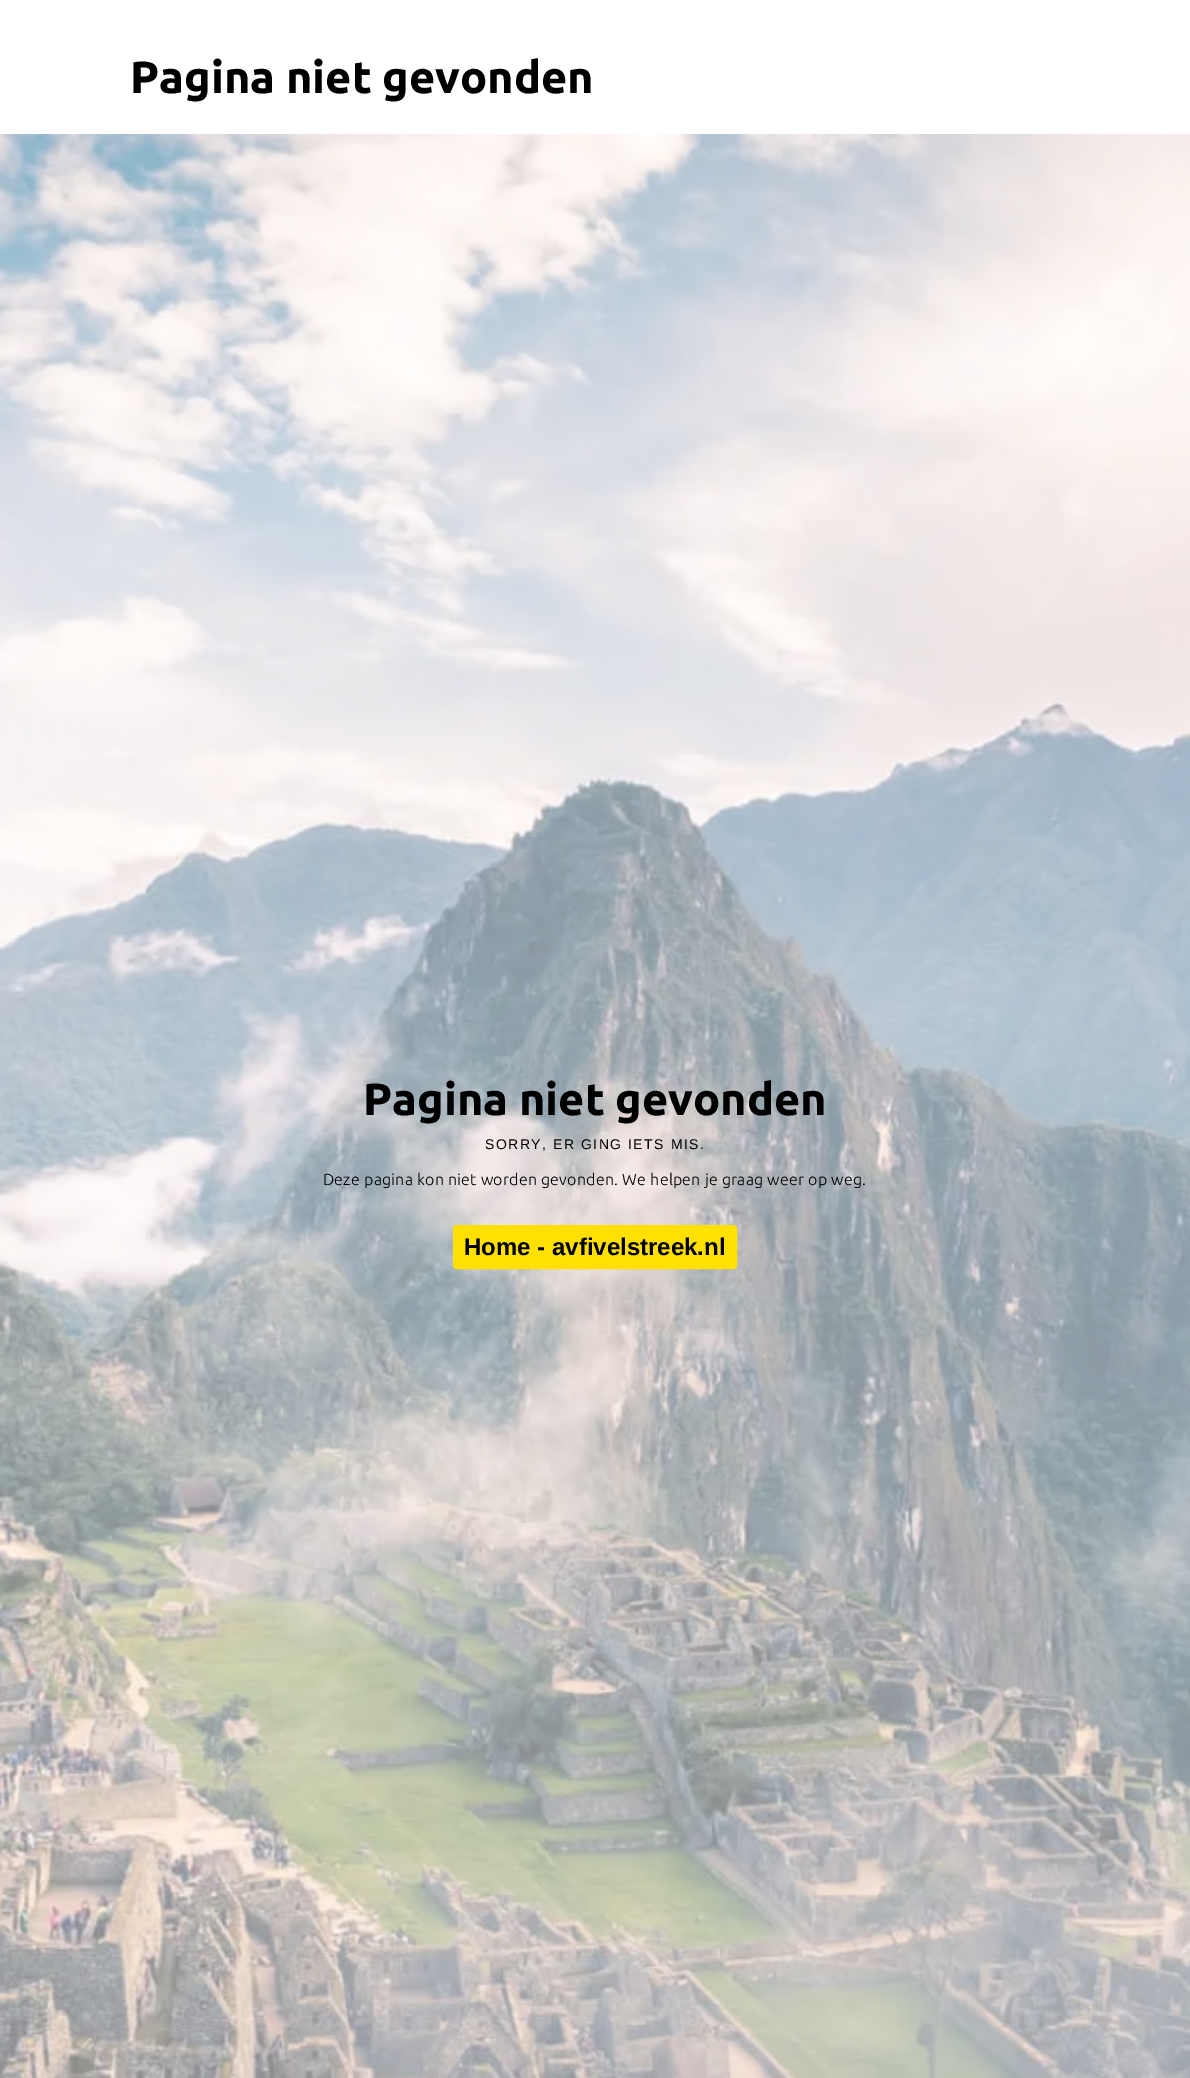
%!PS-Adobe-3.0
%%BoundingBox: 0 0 1190 2078
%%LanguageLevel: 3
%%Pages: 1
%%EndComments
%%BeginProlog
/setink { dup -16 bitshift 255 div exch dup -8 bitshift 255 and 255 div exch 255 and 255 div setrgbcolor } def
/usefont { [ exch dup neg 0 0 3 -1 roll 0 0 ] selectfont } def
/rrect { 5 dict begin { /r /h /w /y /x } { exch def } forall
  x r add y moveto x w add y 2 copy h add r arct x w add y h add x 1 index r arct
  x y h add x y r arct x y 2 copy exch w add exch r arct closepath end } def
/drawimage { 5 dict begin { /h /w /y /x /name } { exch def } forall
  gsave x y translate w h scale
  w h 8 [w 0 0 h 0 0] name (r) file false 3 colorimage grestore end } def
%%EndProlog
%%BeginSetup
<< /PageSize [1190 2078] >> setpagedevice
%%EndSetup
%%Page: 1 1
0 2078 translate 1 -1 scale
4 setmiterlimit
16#FFFFFF setink
0 0 1190 2078 rectfill
/Ubuntu-Bold 45 usefont
16#000000 setink
130 93 moveto (Pagina niet gevonden) show
(img1.raw) 0 134 1190 1944 drawimage
363 1115 moveto (Pagina niet gevonden) show
/LiberationSans-Regular 14 usefont
485 1149 moveto 1.5 0 (SORRY, ER GING IETS MIS.) ashow
/Ubuntu-Light 16 usefont
323 1185 moveto 0.25 0 (Deze pagina kon niet worden gevonden. We helpen je graag weer op weg.) ashow
16#FFE000 setink
453.5 1225.5 283 43 3.5 rrect gsave fill grestore
stroke
/LiberationSans-Bold 24 usefont
16#000000 setink
464 1255 moveto (Home - avfivelstreek.nl) show
showpage
%%EOF
